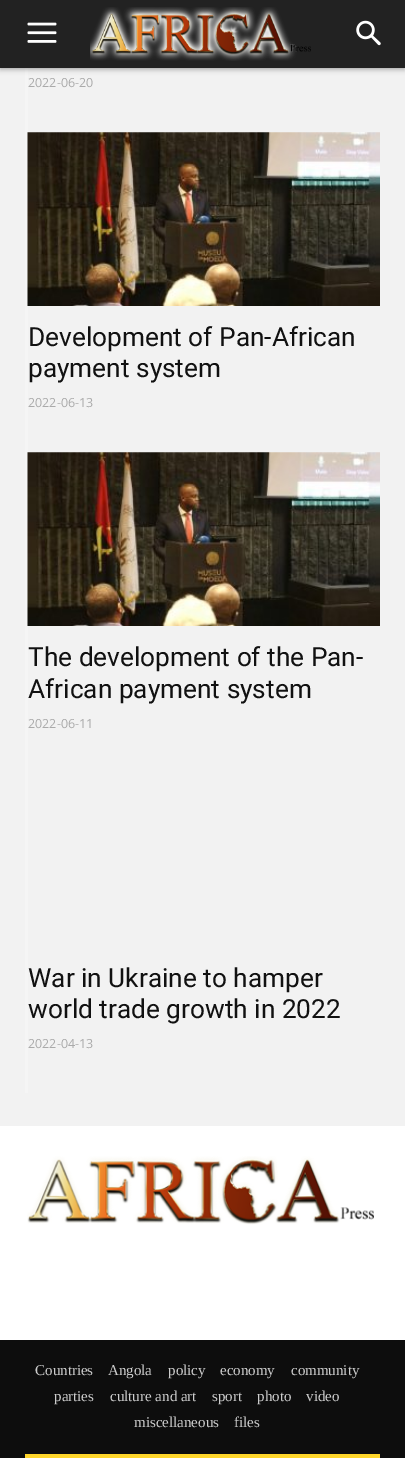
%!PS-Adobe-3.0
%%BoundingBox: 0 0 405 1458
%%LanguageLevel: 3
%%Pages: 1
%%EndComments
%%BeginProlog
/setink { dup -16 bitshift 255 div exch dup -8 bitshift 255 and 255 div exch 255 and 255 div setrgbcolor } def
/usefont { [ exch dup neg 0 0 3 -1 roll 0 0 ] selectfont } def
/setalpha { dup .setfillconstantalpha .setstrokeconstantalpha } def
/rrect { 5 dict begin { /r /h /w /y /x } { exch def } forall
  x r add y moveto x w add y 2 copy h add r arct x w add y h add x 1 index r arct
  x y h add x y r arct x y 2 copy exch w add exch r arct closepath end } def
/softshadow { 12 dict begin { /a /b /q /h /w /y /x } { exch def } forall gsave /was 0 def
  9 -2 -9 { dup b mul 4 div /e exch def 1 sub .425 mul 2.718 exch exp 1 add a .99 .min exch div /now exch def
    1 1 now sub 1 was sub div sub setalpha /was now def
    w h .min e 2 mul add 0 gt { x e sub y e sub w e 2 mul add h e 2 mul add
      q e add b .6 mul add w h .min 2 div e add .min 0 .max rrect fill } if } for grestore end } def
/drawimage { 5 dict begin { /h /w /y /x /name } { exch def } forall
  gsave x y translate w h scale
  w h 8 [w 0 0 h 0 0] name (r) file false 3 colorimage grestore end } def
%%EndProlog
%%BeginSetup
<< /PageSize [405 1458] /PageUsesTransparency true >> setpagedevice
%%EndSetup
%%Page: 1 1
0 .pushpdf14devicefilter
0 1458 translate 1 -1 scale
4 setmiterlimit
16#FFFFFF setink
0 0 405 1458 rectfill
16#F2F2F2 setink
0 68 405 1058 rectfill
16#F5F5F5 setink
25 68 3 1025 rectfill
16#000000 setink
0 3 405 67 0 2.5 0.24 softshadow
0 0 405 68 0 1 0.12 softshadow
16#222222 setink
0 0 405 68 rectfill
(img1.raw) 27 22 30 21 drawimage
(img2.raw) 90 7 221 54 drawimage
(img3.raw) 356 20 25 26 drawimage
/OpenSans-Regular 12.5 usefont
16#AAAAAA setink
28 87 moveto (2022-06-20) show
(img4.raw) 27 132 353 174 drawimage
/Roboto-Regular 26.25 usefont
16#111111 setink
28 346 moveto (Development of Pan-African) show
28 377 moveto (payment system) show
/OpenSans-Regular 12.5 usefont
16#AAAAAA setink
28 407 moveto (2022-06-13) show
(img5.raw) 27 452 353 174 drawimage
/Roboto-Regular 26.25 usefont
16#111111 setink
28 666 moveto (The development of the Pan-) show
28 698 moveto (African payment system) show
/OpenSans-Regular 12.5 usefont
16#AAAAAA setink
28 728 moveto (2022-06-11) show
/Roboto-Regular 26.25 usefont
16#111111 setink
28 987 moveto (War in Ukraine to hamper) show
28 1018 moveto (world trade growth in 2022) show
/OpenSans-Regular 12.5 usefont
16#AAAAAA setink
28 1048 moveto (2022-04-13) show
(img6.raw) 27 1156 347 69 drawimage
16#0D0D0D setink
0 1340 405 118 rectfill
/LiberationSerif-Regular 15 usefont
16#CCCCCC setink
[
    [(Countries) 35 1375]
    [(Angola) 108 1375]
    [(policy) 168 1375]
    [(economy) 220 1375]
    [(community) 291 1375]
    [(parties) 54 1401]
    [(culture and art) 110 1401]
    [(sport) 212 1401]
    [(photo) 257 1401]
    [(video) 306 1401]
    [(miscellaneous) 134 1427]
    [(files) 234 1427]
] { aload pop moveto show } forall
16#FED52A setink
25 1454 355 4 rectfill
.poppdf14devicefilter showpage
%%EOF
